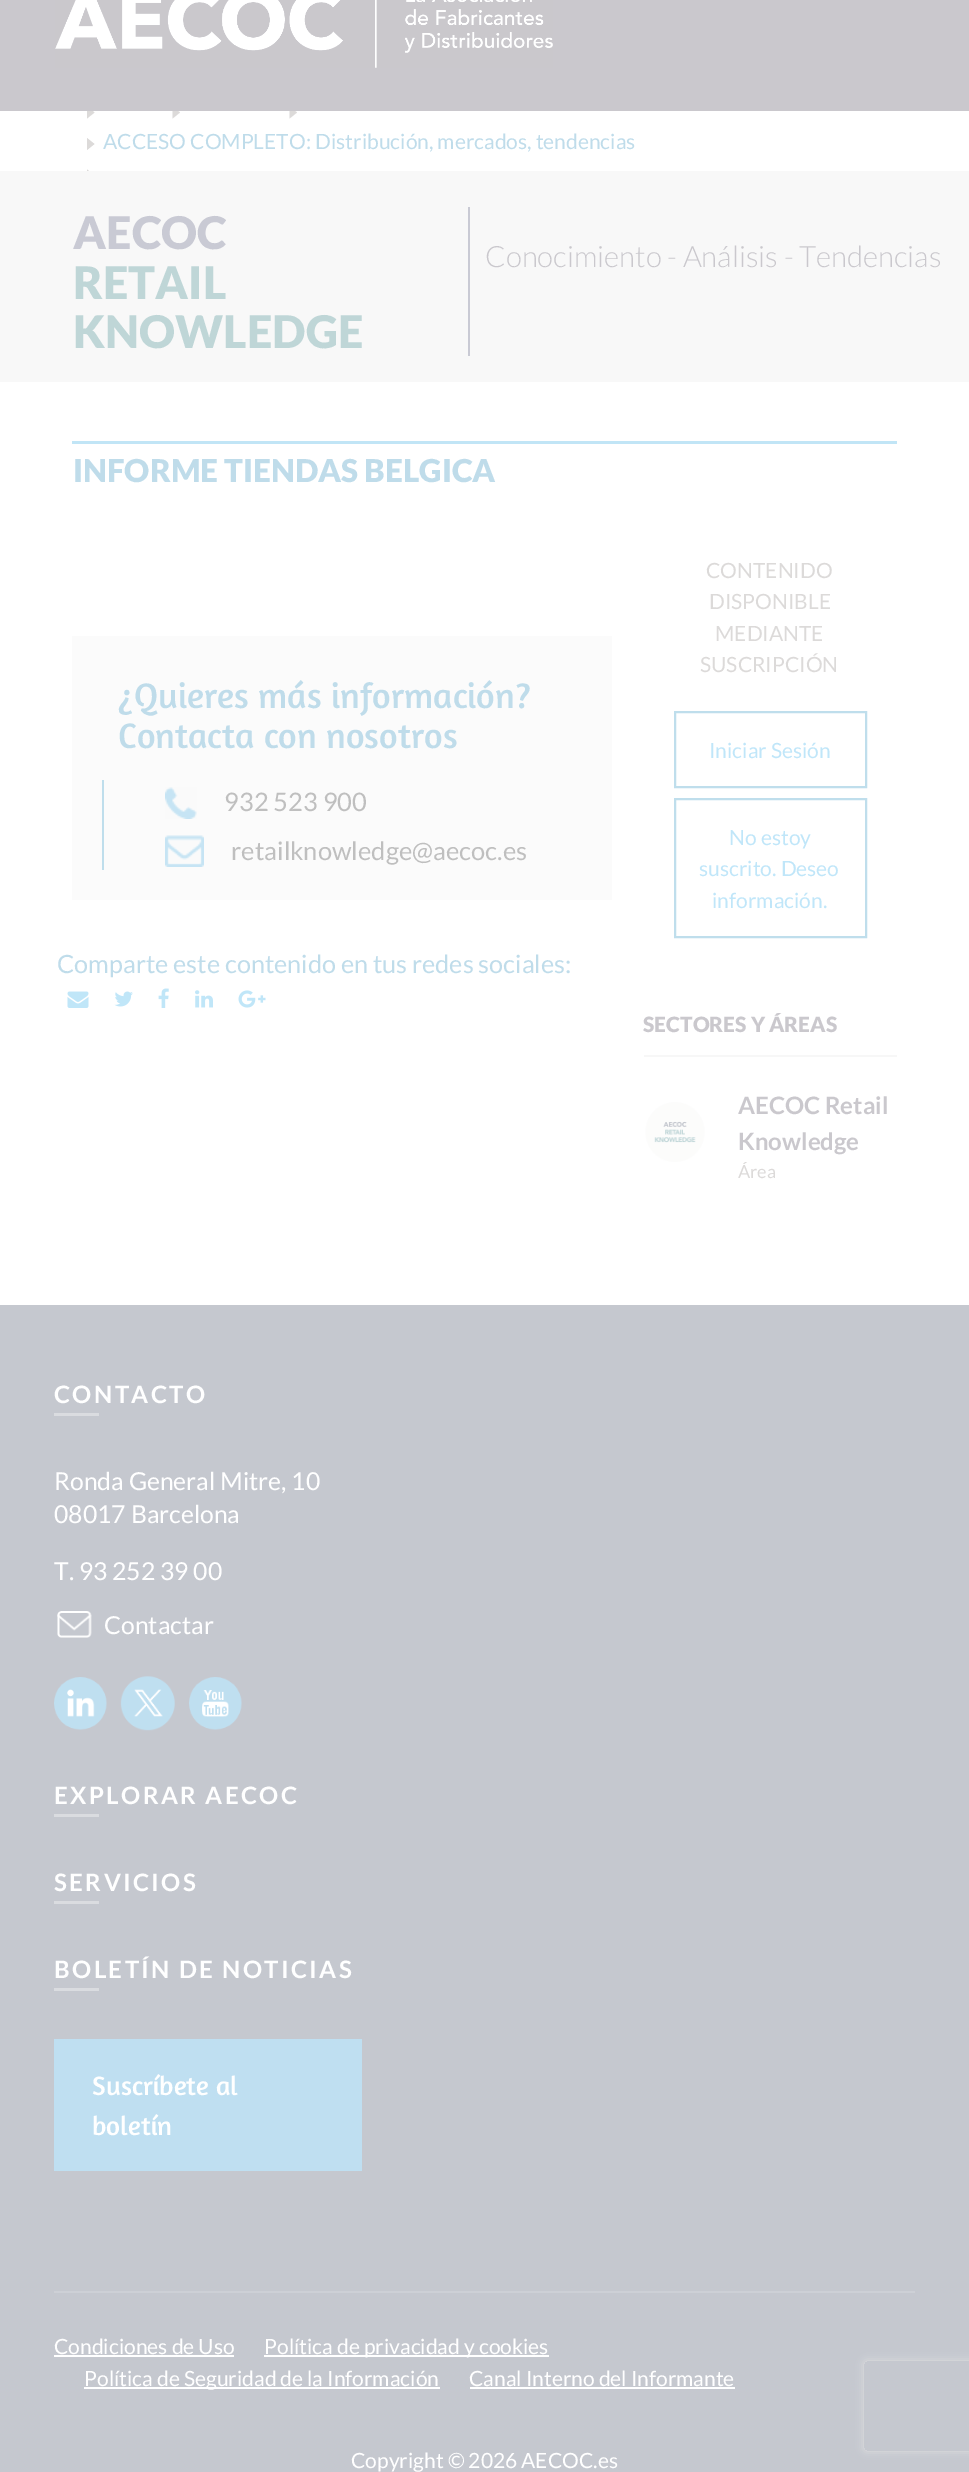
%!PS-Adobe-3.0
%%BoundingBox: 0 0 969 2472
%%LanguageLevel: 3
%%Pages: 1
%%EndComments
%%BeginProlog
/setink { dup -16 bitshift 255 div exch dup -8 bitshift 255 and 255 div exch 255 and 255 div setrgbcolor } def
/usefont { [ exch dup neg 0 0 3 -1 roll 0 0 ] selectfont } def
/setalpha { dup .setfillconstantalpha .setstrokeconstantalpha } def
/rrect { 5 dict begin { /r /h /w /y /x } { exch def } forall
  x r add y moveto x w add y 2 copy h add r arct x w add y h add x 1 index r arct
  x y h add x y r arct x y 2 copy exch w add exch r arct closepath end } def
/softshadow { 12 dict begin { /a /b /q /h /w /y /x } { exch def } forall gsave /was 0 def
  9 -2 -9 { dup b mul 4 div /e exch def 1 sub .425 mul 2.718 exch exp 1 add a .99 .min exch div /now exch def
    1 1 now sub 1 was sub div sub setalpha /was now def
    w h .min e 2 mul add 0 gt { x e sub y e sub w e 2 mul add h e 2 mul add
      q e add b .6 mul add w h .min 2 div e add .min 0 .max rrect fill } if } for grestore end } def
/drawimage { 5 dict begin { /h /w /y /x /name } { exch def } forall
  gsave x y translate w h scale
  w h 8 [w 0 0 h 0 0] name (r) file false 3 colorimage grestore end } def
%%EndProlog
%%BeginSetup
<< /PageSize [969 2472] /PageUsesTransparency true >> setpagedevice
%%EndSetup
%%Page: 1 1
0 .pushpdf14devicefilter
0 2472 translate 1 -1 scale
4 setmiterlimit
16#FFFFFF setink
0 0 969 2472 rectfill
16#DCDAD9 setink
87 118.5 moveto 87 106.5 lineto 94.5 112.5 lineto closepath fill
172.5 118.5 moveto 172.5 106.5 lineto 180 112.5 lineto closepath fill
289.5 118.5 moveto 289.5 106.5 lineto 297 112.5 lineto closepath fill
16#CAC8CD setink
0 0 969 111 rectfill
(img1.raw) 55 0 498 68 drawimage
16#DCDAD9 setink
87 150 moveto 87 138 lineto 94.5 144 lineto closepath fill
/Lato-Regular 21 usefont
16#BFDCEA setink
103 149 moveto (ACCESO COMPLETO: Distribución, mercados, tendencias) show
16#DCDAD9 setink
87 181.5 moveto 87 169.5 lineto 94.5 175.5 lineto closepath fill
16#F8F8F8 setink
0 171 969 211 rectfill
16#C9CAD4 setink
468 207 2 149 rectfill
/Lato-Black 45 usefont
73 249 moveto (AECOC) show
16#BFD6D7 setink
73 299 moveto (RETAIL) show
73 348 moveto (KNOWLEDGE) show
/Lato-Light 29.4 usefont
16#CAC8CD setink
485 267 moveto (Conocimiento - Análisis - Tendencias) show
16#C1E5F6 setink
72 441 825 3 rectfill
/Lato-Black 31.5 usefont
16#BFDCEA setink
73 482 moveto (INFORME TIENDAS BELGICA) show
16#FBFBFB setink
72 636 540 264 rectfill
/Amaranth-Regular 36 usefont
16#BFDCEA setink
118 708 moveto (¿Quieres más información?) show
118 748 moveto (Contacta con nosotros) show
16#BFDEEC setink
102 780 2 90 rectfill
(img2.raw) 165 787 32 32 drawimage
/Lato-Regular 25.5 usefont
16#BFBFBF setink
224 811 moveto (932 523 900) show
(img3.raw) 165 835 39 32 drawimage
231 860 moveto (retailknowledge@aecoc.es) show
/Lato-Regular 25.2 usefont
16#BFDCEA setink
57 973 moveto (Comparte este contenido en tus redes sociales:) show
(img4.raw) 67 991 22 17 drawimage
(img5.raw) 114 991 19 16 drawimage
(img6.raw) 158 988 11 20 drawimage
(img7.raw) 195 990 18 18 drawimage
(img8.raw) 238 990 28 18 drawimage
/Lato-Regular 21 usefont
16#DCDAD9 setink
[
    [(CONTENIDO) 706 578]
    [(DISPONIBLE) 709 609]
    [(MEDIANTE) 715 641]
    [(SUSCRIPCIÓN) 700 672]
] { aload pop moveto show } forall
16#BFDEEC setink
2 setlinewidth
675 712 191 75 rectstroke
16#C0E6F9 setink
709 758 moveto (Iniciar Sesión) show
16#BFDEEC setink
675 799 191 138 rectstroke
16#C0E6F9 setink
[
    [(No estoy) 729 845]
    [(suscrito. Deseo) 699 876]
    [(información.) 712 908]
] { aload pop moveto show } forall
/Lato-Black 21 usefont
16#CAC8CD setink
643 1032 moveto (SECTORES Y ÁREAS) show
16#F7F7F7 setink
644 1055 253 2 rectfill
(img9.raw) 645 1102 60 60 drawimage
/Lato-Bold 24 usefont
16#CAC8CD setink
738 1114 moveto (AECOC Retail) show
738 1150 moveto (Knowledge) show
/Lato-Regular 18 usefont
16#DCDAD9 setink
738 1178 moveto (Área) show
16#C5C8CF setink
0 1305 969 1167 rectfill
16#CDD0D6 setink
54 2291 861 2 rectfill
/Lato-Bold 24 usefont
16#FFFFFF setink
54 1403 moveto 2.4 0 (CONTACTO) ashow
16#DADCE0 setink
54 1413 45 3 rectfill
/Lato-Regular 24.75 usefont
16#FFFFFF setink
[
    [(Ronda General Mitre, 10) 54 1490]
    [(08017 Barcelona) 54 1523]
    [(T. 93 252 39 00) 54 1580]
] { aload pop moveto show } forall
(img10.raw) 57 1611 35 27 drawimage
104 1634 moveto (Contactar) show
(img11.raw) 54 1677 53 53 drawimage
(img12.raw) 120 1676 55 55 drawimage
(img13.raw) 189 1677 53 53 drawimage
/Lato-Bold 24 usefont
54 1804 moveto 2.4 0 (EXPLORAR AECOC) ashow
16#DADCE0 setink
54 1814 45 3 rectfill
16#FFFFFF setink
54 1891 moveto 2.4 0 (SERVICIOS) ashow
16#DADCE0 setink
54 1901 45 3 rectfill
16#FFFFFF setink
54 1978 moveto 2.4 0 (BOLETÍN DE NOTICIAS) ashow
16#DADCE0 setink
54 1988 45 3 rectfill
16#BFDFF1 setink
54 2039 308 132 rectfill
/Amaranth-Regular 27 usefont
16#FFFFFF setink
92 2095 moveto (Suscríbete al) show
92 2135 moveto (boletín) show
/Lato-Regular 21 usefont
54 2354 moveto (Condiciones de Uso) show
54 2355 180 2 rectfill
264 2355 285 2 rectfill
264 2354 moveto (Política de privacidad y cookies) show
84 2387 356 2 rectfill
84 2386 moveto (Política de Seguridad de la Información) show
469 2386 moveto (Canal Interno del Informante) show
470 2387 265 2 rectfill
351 2468 moveto (Copyright © 2026 AECOC.es) show
gsave
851 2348 moveto 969 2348 lineto 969 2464 lineto 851 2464 lineto closepath 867 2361 moveto 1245 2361 lineto 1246.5 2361 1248 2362.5 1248 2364 curveto 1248 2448 lineto 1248 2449.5 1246.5 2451 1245 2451 curveto 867 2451 lineto 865.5 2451 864 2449.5 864 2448 curveto 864 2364 lineto 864 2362.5 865.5 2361 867 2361 curveto closepath eoclip newpath
16#DFDFDF setink
864 2361 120 90 3 4 1 softshadow
grestore
.poppdf14devicefilter showpage
%%EOF
